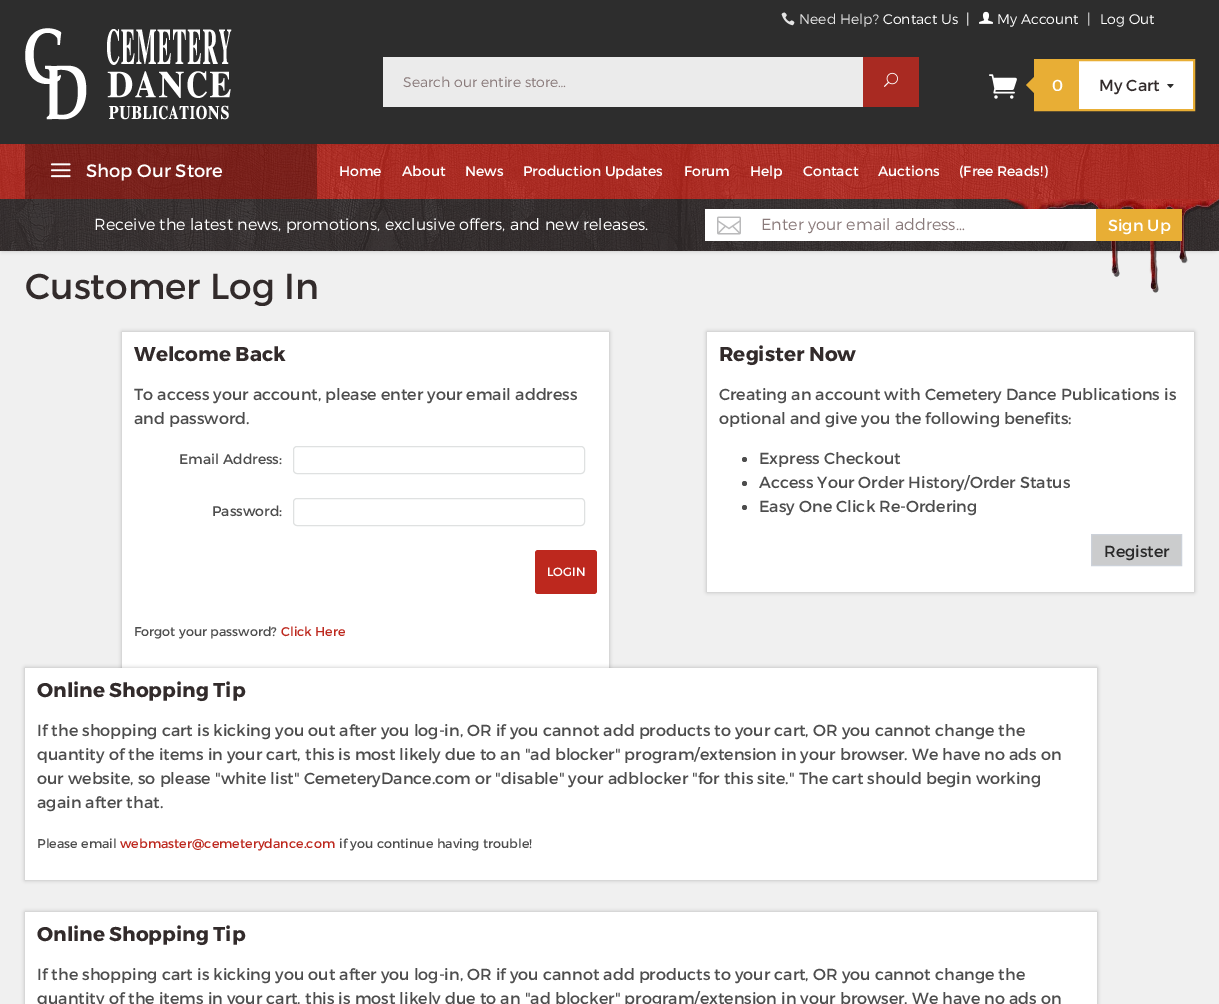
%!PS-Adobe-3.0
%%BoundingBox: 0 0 1219 1004
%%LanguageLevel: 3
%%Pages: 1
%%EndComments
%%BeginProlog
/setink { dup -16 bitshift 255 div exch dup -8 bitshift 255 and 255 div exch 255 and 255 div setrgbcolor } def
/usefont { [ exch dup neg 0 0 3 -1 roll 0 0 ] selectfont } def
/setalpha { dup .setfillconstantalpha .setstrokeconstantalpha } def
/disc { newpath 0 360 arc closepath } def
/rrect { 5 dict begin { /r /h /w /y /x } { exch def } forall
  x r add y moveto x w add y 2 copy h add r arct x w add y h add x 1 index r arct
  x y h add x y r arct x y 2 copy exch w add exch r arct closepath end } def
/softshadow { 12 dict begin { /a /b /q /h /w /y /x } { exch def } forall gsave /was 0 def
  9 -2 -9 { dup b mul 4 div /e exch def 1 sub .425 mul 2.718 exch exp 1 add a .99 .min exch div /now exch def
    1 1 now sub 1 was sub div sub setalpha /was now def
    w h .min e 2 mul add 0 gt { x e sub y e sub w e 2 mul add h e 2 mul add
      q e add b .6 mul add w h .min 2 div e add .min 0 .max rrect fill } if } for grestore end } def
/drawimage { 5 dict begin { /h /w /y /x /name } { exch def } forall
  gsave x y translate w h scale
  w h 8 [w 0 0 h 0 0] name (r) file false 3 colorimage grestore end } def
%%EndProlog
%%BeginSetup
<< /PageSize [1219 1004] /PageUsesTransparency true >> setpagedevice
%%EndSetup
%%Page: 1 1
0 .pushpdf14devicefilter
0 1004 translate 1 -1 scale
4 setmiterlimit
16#F0F0F0 setink
0 0 1219 1004 rectfill
16#2D2D2D setink
0 0 1219 144 rectfill
(img1.raw) 781 12 14 14 drawimage
/Montserrat-Light 14 usefont
16#E4E4E4 setink
799 24 moveto (Need Help?) show
16#FFFFFF setink
883 24 moveto (Contact Us) show
966 24 moveto (|) show
(img2.raw) 979 11 14 13 drawimage
997 24 moveto (My Account) show
16#E4E4E4 setink
1087 24 moveto (|) show
16#FFFFFF setink
1100 24 moveto (Log Out) show
(img3.raw) 25 28 207 92 drawimage
16#EBEBEB setink
383 57 480 50 rectfill
16#8A7B7B setink
403 87 moveto (Search our entire store…) show
16#A92A22 setink
863 57 56 50 rectfill
(img4.raw) 884 72 14 15 drawimage
(img5.raw) 989 74 28 25 drawimage
16#FFFFFF setink
1079 61 114 48 rectfill
16#E8AE35 setink
2 setlinewidth
1035 60 159 50 rectstroke
1036 75 moveto 1036 95 lineto 1026 85 lineto closepath fill
1036 61 43 48 rectfill
/Montserrat-Regular 16 usefont
16#FFFFFF setink
1052 91 moveto (0) show
16#322B2B setink
1099 91 moveto (My Cart) show
(img6.raw) 1167 84 7 4 drawimage
16#000000 setink
2 203 1215 48 0 2 0.2 softshadow
16#BD281E setink
0 144 1219 55 rectfill
(img7.raw) 0 144 1219 55 drawimage
0.3 setalpha
16#000000 setink
25 144 292 55 rectfill
1 setalpha
(img8.raw) 50 163 21 15 drawimage
/Montserrat-Regular 18 usefont
16#FFFFFF setink
86 177 moveto (Shop Our Store) show
/Montserrat-Regular 14 usefont
[
    [(Home) 339 176]
    [(About) 402 176]
    [(News) 465 176]
    [(Production Updates) 523 176]
    [(Forum) 684 176]
    [(Help) 750 176]
    [(Contact) 803 176]
    [(Auctions) 878 176]
    [(\(Free Reads!\)) 959 176]
] { aload pop moveto show } forall
16#322B2B setink
0 199 1219 52 rectfill
(img10.raw) 0 199 1219 52 drawimage
(img9.raw) 1003 199 216 94 drawimage
/Montserrat-Light 16 usefont
16#FFFFFF setink
94 230 moveto (Receive the latest news, promotions, exclusive offers, and new releases.) show
705 209 391 32 rectfill
(img11.raw) 717 216 24 19 drawimage
16#8A7B7B setink
761 230 moveto (Enter your email address…) show
16#E8AE35 setink
1096 209 86 32 rectfill
/Montserrat-Regular 16 usefont
16#FFFFFF setink
1108 231 moveto (Sign Up) show
/Montserrat-Regular 36 usefont
16#322B2B setink
25 299 moveto (Customer Log In) show
16#000000 setink
122 332 487 336 0 2 0.25 softshadow
16#FFFFFF setink
122 332 487 336 rectfill
/Montserrat-Bold 20 usefont
16#322B2B setink
134 361 moveto (Welcome Back) show
/Montserrat-Regular 16 usefont
16#4D4D4D setink
134 400 moveto (To access your account, please enter your email address) show
134 424 moveto (and password.) show
/Montserrat-Regular 14 usefont
179 464 moveto (Email Address:) show
16#DFE1E1 setink
1 setlinewidth
293.5 446.5 291 27 3.5 rrect stroke
16#4D4D4D setink
212 516 moveto (Password:) show
16#DFE1E1 setink
293.5 498.5 291 27 3.5 rrect stroke
16#BD281E setink
535 550 62 44 3 rrect fill
/Montserrat-Regular 12 usefont
16#FFFFFF setink
547 576 moveto (LOGIN) show
/Montserrat-Regular 12.75 usefont
16#4D4D4D setink
134 636 moveto (Forgot your password?) show
16#BD281E setink
281 636 moveto (Click Here) show
16#000000 setink
707 332 487 260 0 2 0.25 softshadow
16#FFFFFF setink
707 332 487 260 rectfill
/Montserrat-Bold 20 usefont
16#322B2B setink
719 361 moveto (Register Now) show
/Montserrat-Regular 16 usefont
16#4D4D4D setink
719 400 moveto (Creating an account with Cemetery Dance Publications is) show
719 424 moveto (optional and give you the following benefits:) show
744.5 459.5 2.5 disc fill
759 464 moveto (Express Checkout) show
744.5 483.5 2.5 disc fill
759 488 moveto (Access Your Order History/Order Status) show
744.5 507.5 2.5 disc fill
759 512 moveto (Easy One Click Re-Ordering) show
16#CBCCCD setink
1091.5 534.5 moveto 1181.5 534.5 lineto 1181.5 565.5 lineto 1091.5 565.5 lineto closepath gsave fill grestore
16#CCD1D9 setink
stroke
16#292929 setink
1104 557 moveto (Register) show
16#000000 setink
25 668 1072 212 0 2 0.25 softshadow
16#FFFFFF setink
25 668 1072 212 rectfill
/Montserrat-Bold 20 usefont
16#322B2B setink
37 697 moveto (Online Shopping Tip) show
/Montserrat-Regular 16 usefont
16#4D4D4D setink
[
    [(If the shopping cart is kicking you out after you log-in, OR if you cannot add products to your cart, OR you cannot change the) 37 736]
    [(quantity of the items in your cart, this is most likely due to an "ad blocker" program/extension in your browser. We have no ads on) 37 760]
    [(our website, so please "white list" CemeteryDance.com or "disable" your adblocker "for this site." The cart should begin working) 37 784]
    [(again after that.) 37 808]
] { aload pop moveto show } forall
/Montserrat-Regular 12.75 usefont
37 848 moveto (Please email) show
16#BD281E setink
120 848 moveto (webmaster@cemeterydance.com) show
16#4D4D4D setink
339 848 moveto (if you continue having trouble!) show
16#000000 setink
25 912 1072 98 0 2 0.25 softshadow
16#FFFFFF setink
25 912 1072 92 rectfill
/Montserrat-Bold 20 usefont
16#322B2B setink
37 941 moveto (Online Shopping Tip) show
/Montserrat-Regular 16 usefont
16#4D4D4D setink
37 980 moveto (If the shopping cart is kicking you out after you log-in, OR if you cannot add products to your cart, OR you cannot change the) show
37 1004 moveto (quantity of the items in your cart, this is most likely due to an "ad blocker" program/extension in your browser. We have no ads on) show
.poppdf14devicefilter showpage
%%EOF
